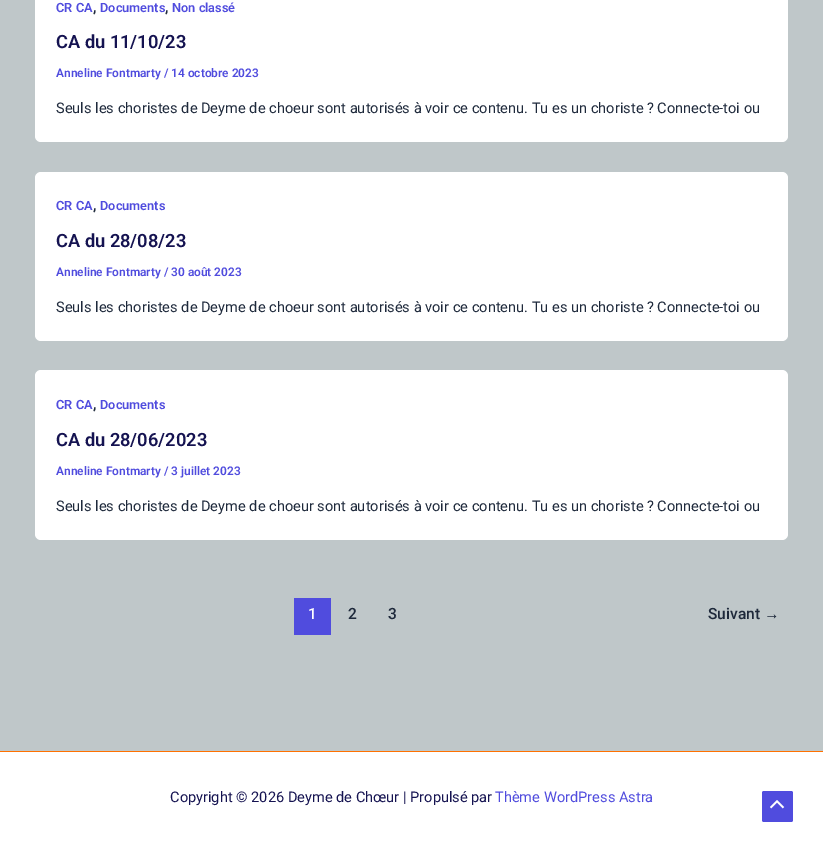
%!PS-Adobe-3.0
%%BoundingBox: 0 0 823 852
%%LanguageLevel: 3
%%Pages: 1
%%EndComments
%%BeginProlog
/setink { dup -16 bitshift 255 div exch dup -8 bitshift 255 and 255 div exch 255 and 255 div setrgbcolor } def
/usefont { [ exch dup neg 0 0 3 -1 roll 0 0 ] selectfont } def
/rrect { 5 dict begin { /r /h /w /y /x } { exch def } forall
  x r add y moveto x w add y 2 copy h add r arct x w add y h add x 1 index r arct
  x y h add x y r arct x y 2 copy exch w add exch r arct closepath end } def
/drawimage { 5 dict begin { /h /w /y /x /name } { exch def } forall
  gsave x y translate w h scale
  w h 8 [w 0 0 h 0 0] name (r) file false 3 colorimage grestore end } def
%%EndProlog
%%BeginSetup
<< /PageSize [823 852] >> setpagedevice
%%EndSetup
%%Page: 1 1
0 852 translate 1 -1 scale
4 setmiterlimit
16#BFC7C9 setink
0 0 823 852 rectfill
16#FFFFFF setink
35 -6 753 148 6 rrect fill
/Roboto-SemiBold 12.75 usefont
16#504CDE setink
56 12 moveto (CR CA) show
/Roboto-SemiBold 14.6 usefont
16#1E293B setink
93 12 moveto (,) show
/Roboto-SemiBold 12.75 usefont
16#504CDE setink
100 12 moveto (Documents) show
/Roboto-SemiBold 14.6 usefont
16#1E293B setink
165 12 moveto (,) show
/Roboto-SemiBold 12.75 usefont
16#504CDE setink
172 12 moveto (Non classé) show
/Roboto-SemiBold 18.25 usefont
16#151351 setink
56 48 moveto (CA du 11/10/23) show
/Roboto-SemiBold 11.9 usefont
16#504CDE setink
56 77 moveto (Anneline Fontmarty / 14 octobre 2023) show
/Roboto-Regular 14.6 usefont
16#1E293B setink
56 113 moveto (Seuls les choristes de Deyme de choeur sont autorisés à voir ce contenu. Tu es un choriste ? Connecte-toi ou) show
16#FFFFFF setink
35 172 753 169 6 rrect fill
/Roboto-SemiBold 12.75 usefont
16#504CDE setink
56 210 moveto (CR CA) show
/Roboto-SemiBold 14.6 usefont
16#1E293B setink
93 210 moveto (,) show
/Roboto-SemiBold 12.75 usefont
16#504CDE setink
100 210 moveto (Documents) show
/Roboto-SemiBold 18.25 usefont
16#151351 setink
56 247 moveto (CA du 28/08/23) show
/Roboto-SemiBold 11.9 usefont
16#504CDE setink
56 276 moveto (Anneline Fontmarty / 30 août 2023) show
/Roboto-Regular 14.6 usefont
16#1E293B setink
56 312 moveto (Seuls les choristes de Deyme de choeur sont autorisés à voir ce contenu. Tu es un choriste ? Connecte-toi ou) show
16#FFFFFF setink
35 370 753 170 6 rrect fill
/Roboto-SemiBold 12.75 usefont
16#504CDE setink
56 409 moveto (CR CA) show
/Roboto-SemiBold 14.6 usefont
16#1E293B setink
93 409 moveto (,) show
/Roboto-SemiBold 12.75 usefont
16#504CDE setink
100 409 moveto (Documents) show
/Roboto-SemiBold 18.25 usefont
16#151351 setink
56 446 moveto (CA du 28/06/2023) show
/Roboto-SemiBold 11.9 usefont
16#504CDE setink
56 475 moveto (Anneline Fontmarty / 3 juillet 2023) show
/Roboto-Regular 14.6 usefont
16#1E293B setink
56 511 moveto (Seuls les choristes de Deyme de choeur sont autorisés à voir ce contenu. Tu es un choriste ? Connecte-toi ou) show
16#504CDE setink
294 598 37 37 rectfill
/Roboto-Medium 15.5 usefont
16#FFFFFF setink
308 619 moveto (1) show
16#1E293B setink
[
    [(2) 348 619]
    [(3) 388 619]
    [(Suivant) 708 619]
] { aload pop moveto show } forall
/LiberationSans-Regular 15.5 usefont
764 619 moveto (→) show
16#FFFFFF setink
0 752 823 100 rectfill
16#FF7100 setink
0 751 823 1 rectfill
/Roboto-Regular 14.6 usefont
16#151351 setink
170 802 moveto (Copyright © 2026 Deyme de Chœur | Propulsé par) show
16#504CDE setink
495 802 moveto (Thème WordPress Astra) show
762 791 31 31 2 rrect fill
(img1.raw) 770 800 15 9 drawimage
showpage
%%EOF
